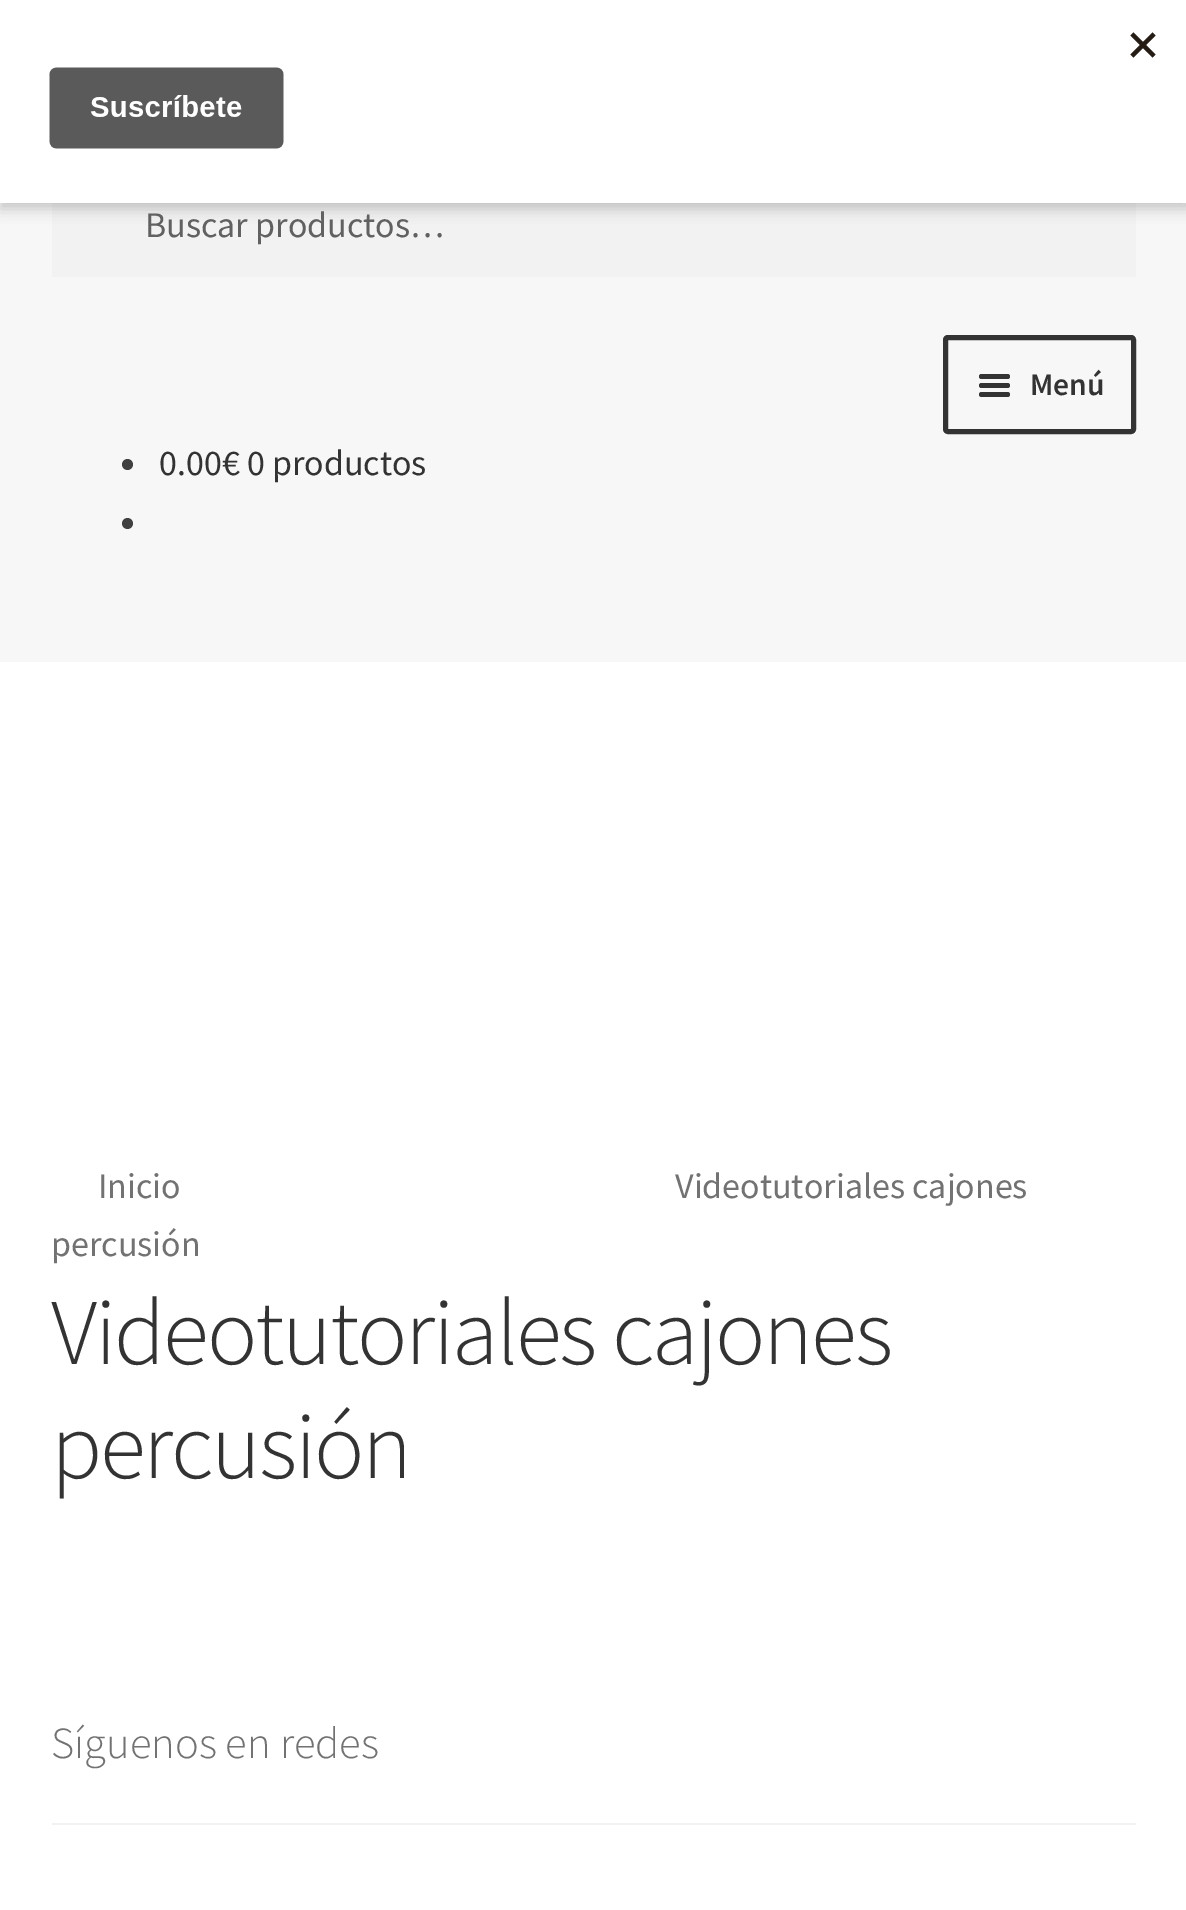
%!PS-Adobe-3.0
%%BoundingBox: 0 0 1186 1910
%%LanguageLevel: 3
%%Pages: 1
%%EndComments
%%BeginProlog
/setink { dup -16 bitshift 255 div exch dup -8 bitshift 255 and 255 div exch 255 and 255 div setrgbcolor } def
/usefont { [ exch dup neg 0 0 3 -1 roll 0 0 ] selectfont } def
/setalpha { dup .setfillconstantalpha .setstrokeconstantalpha } def
/disc { newpath 0 360 arc closepath } def
/rrect { 5 dict begin { /r /h /w /y /x } { exch def } forall
  x r add y moveto x w add y 2 copy h add r arct x w add y h add x 1 index r arct
  x y h add x y r arct x y 2 copy exch w add exch r arct closepath end } def
/softshadow { 12 dict begin { /a /b /q /h /w /y /x } { exch def } forall gsave /was 0 def
  9 -2 -9 { dup b mul 4 div /e exch def 1 sub .425 mul 2.718 exch exp 1 add a .99 .min exch div /now exch def
    1 1 now sub 1 was sub div sub setalpha /was now def
    w h .min e 2 mul add 0 gt { x e sub y e sub w e 2 mul add h e 2 mul add
      q e add b .6 mul add w h .min 2 div e add .min 0 .max rrect fill } if } for grestore end } def
/drawimage { 5 dict begin { /h /w /y /x /name } { exch def } forall
  gsave x y translate w h scale
  w h 8 [w 0 0 h 0 0] name (r) file false 3 colorimage grestore end } def
%%EndProlog
%%BeginSetup
<< /PageSize [1186 1910] /PageUsesTransparency true >> setpagedevice
%%EndSetup
%%Page: 1 1
0 .pushpdf14devicefilter
0 1910 translate 1 -1 scale
4 setmiterlimit
16#FFFFFF setink
0 0 1186 1910 rectfill
16#F7F7F7 setink
0 203 1186 459 rectfill
16#F2F2F2 setink
52 203 1084 74 rectfill
16#000000 setink
0 7 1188 202 0 7 0.2 softshadow
16#FFFFFF setink
0 0 1186 203 rectfill
(img1.raw) 49 32 1107 117 drawimage
/SourceSansPro-Regular 36 usefont
16#616161 setink
145 237 moveto (Buscar productos…) show
16#333333 setink
5 setlinewidth
945.5 337.5 188 94 2.5 rrect stroke
979 374 31 5 2.5 rrect fill
979 383 31 5 2.5 rrect fill
/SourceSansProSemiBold-SemiBold 31.5 usefont
1030 395 moveto (Menú) show
979 392 31 5 2.5 rrect fill
16#404040 setink
127.5 464.5 5.5 disc fill
/SourceSansPro-Regular 36 usefont
16#333333 setink
159 475 moveto (0.00€ 0 productos) show
16#404040 setink
127.5 523.5 5.5 disc fill
16#727272 setink
[
    [(Inicio) 98 1198]
    [(Videotutoriales cajones) 675 1198]
    [(percusión) 51 1256]
] { aload pop moveto show } forall
/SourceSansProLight-Light 94.25 usefont
16#333333 setink
51 1364 moveto -2.25 0 (Videotutoriales cajones) ashow
51 1478 moveto -2.25 0 (percusión) ashow
16#F2F2F2 setink
52 1823 1084 2 rectfill
/SourceSansProLight-Light 44.5 usefont
16#727272 setink
51 1758 moveto (Síguenos en redes) show
.poppdf14devicefilter showpage
%%EOF
